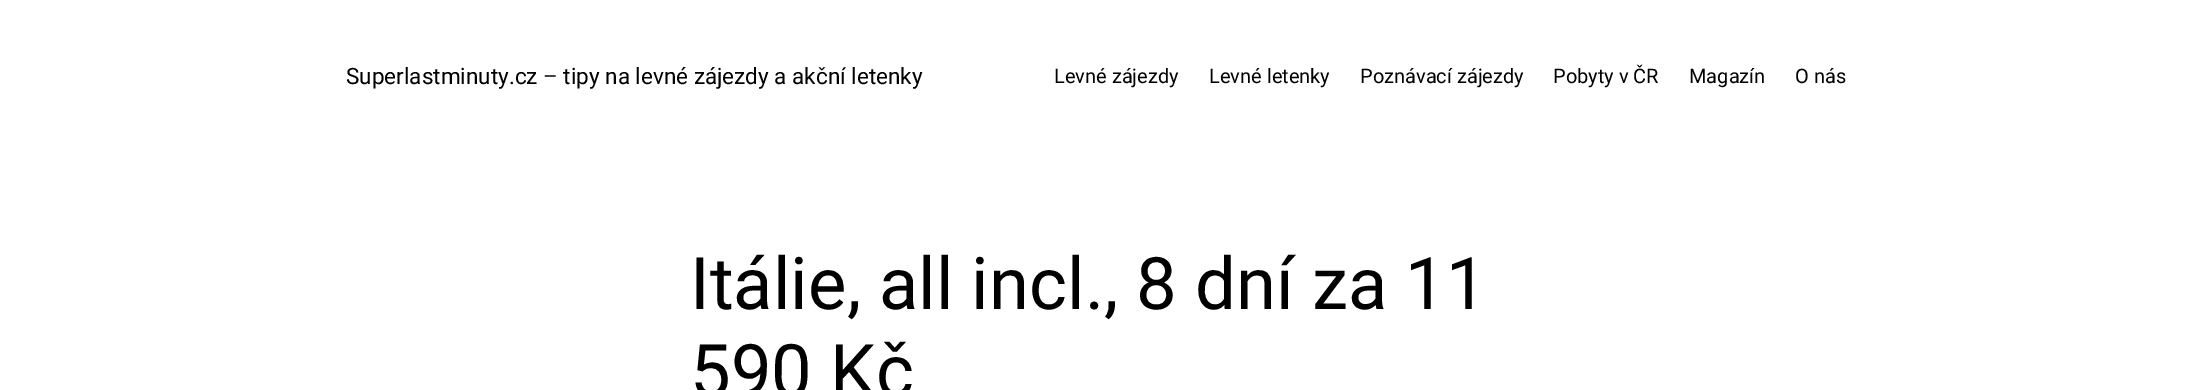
%!PS-Adobe-3.0
%%BoundingBox: 0 0 2192 390
%%LanguageLevel: 3
%%Pages: 1
%%EndComments
%%BeginProlog
/setink { dup -16 bitshift 255 div exch dup -8 bitshift 255 and 255 div exch 255 and 255 div setrgbcolor } def
/usefont { [ exch dup neg 0 0 3 -1 roll 0 0 ] selectfont } def
%%EndProlog
%%BeginSetup
<< /PageSize [2192 390] >> setpagedevice
%%EndSetup
%%Page: 1 1
0 390 translate 1 -1 scale
4 setmiterlimit
16#FFFFFF setink
0 0 2192 390 rectfill
/Roboto-Regular 22.5 usefont
16#000000 setink
346 84 moveto (Superlastminuty.cz – tipy na levné zájezdy a akční letenky) show
/Roboto-Regular 20 usefont
[
    [(Levné zájezdy) 1054 83]
    [(Levné letenky) 1209 83]
    [(Poznávací zájezdy) 1360 83]
    [(Pobyty v ČR) 1553 83]
    [(Magazín) 1689 83]
    [(O nás) 1795 83]
] { aload pop moveto show } forall
/Roboto-Regular 72.5 usefont
690 309 moveto (Itálie, all incl., 8 dní za 11) show
690 396 moveto (590 Kč) show
showpage
%%EOF
